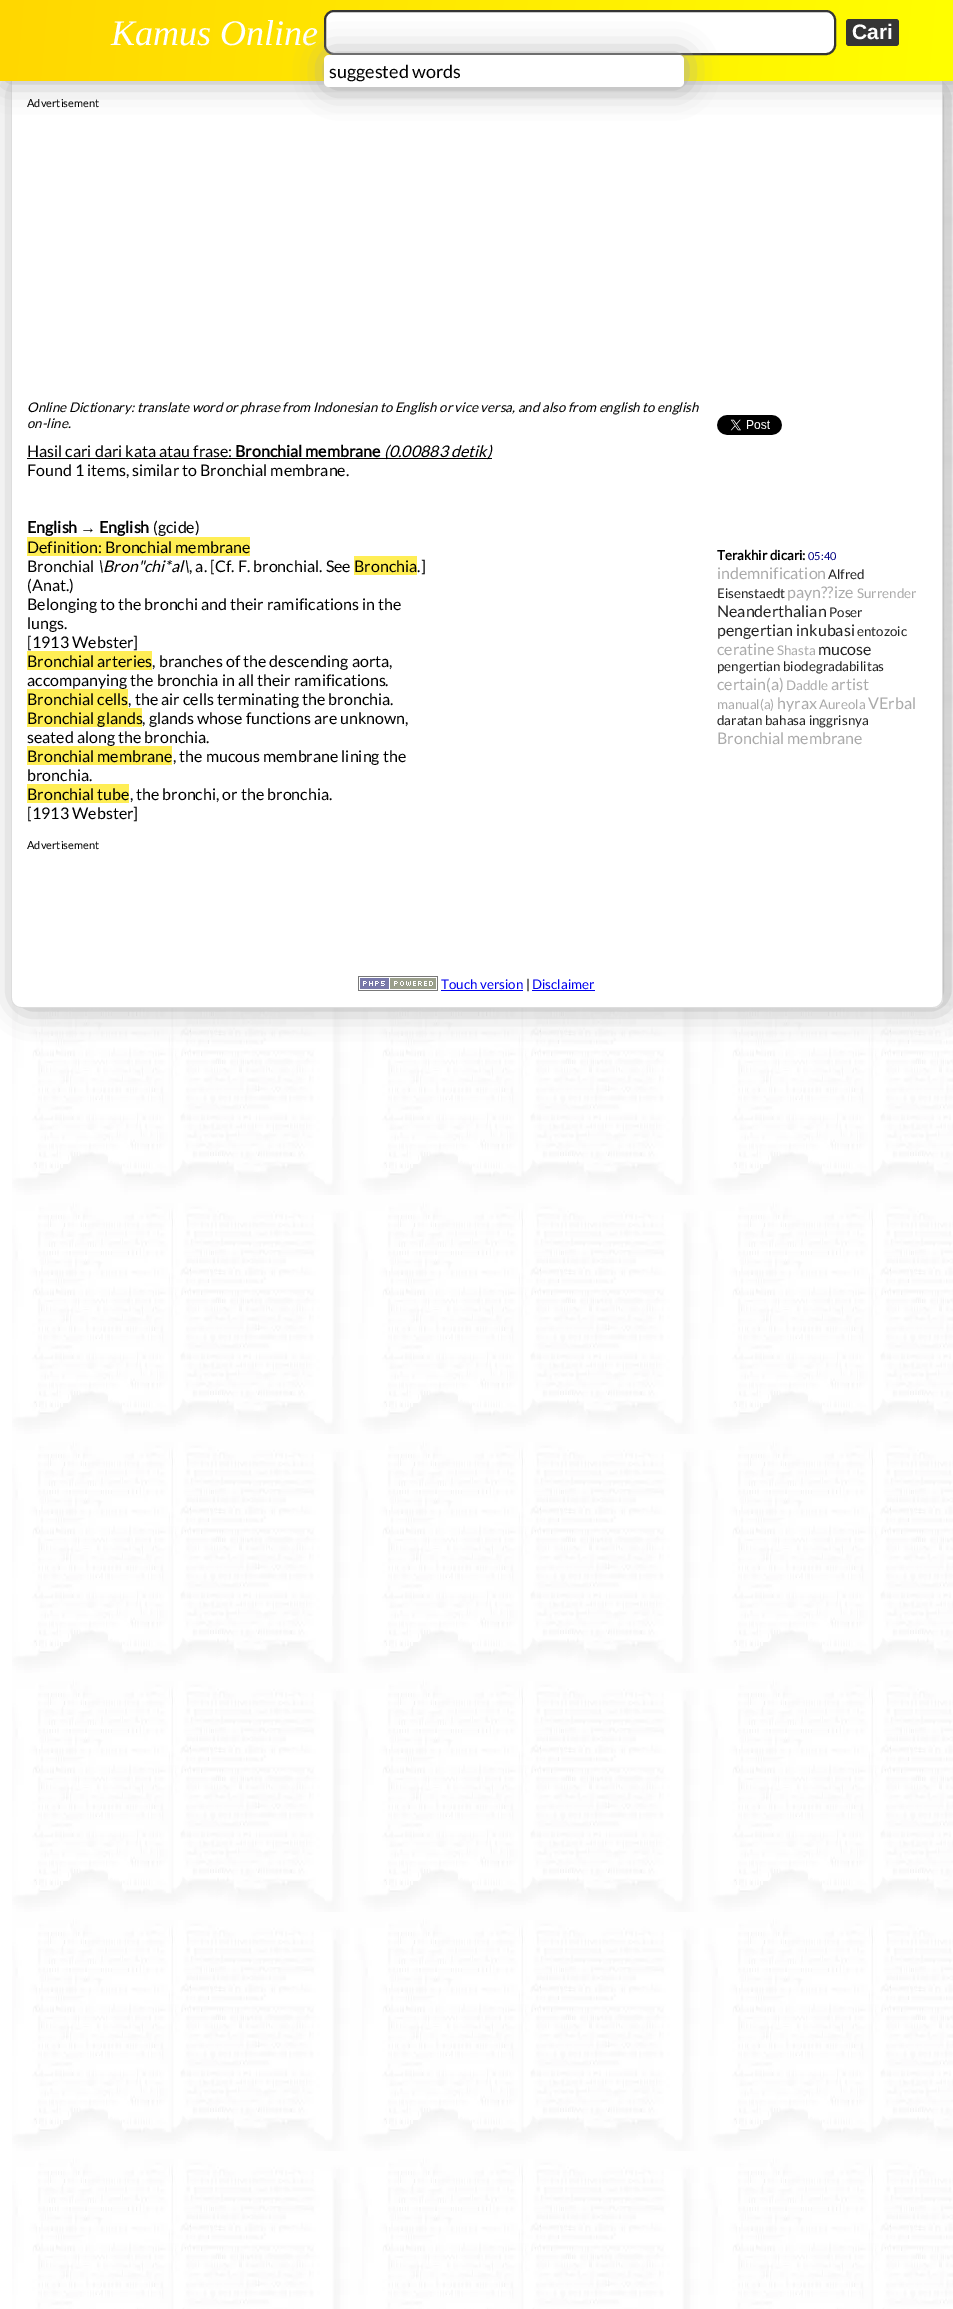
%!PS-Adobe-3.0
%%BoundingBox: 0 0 953 2309
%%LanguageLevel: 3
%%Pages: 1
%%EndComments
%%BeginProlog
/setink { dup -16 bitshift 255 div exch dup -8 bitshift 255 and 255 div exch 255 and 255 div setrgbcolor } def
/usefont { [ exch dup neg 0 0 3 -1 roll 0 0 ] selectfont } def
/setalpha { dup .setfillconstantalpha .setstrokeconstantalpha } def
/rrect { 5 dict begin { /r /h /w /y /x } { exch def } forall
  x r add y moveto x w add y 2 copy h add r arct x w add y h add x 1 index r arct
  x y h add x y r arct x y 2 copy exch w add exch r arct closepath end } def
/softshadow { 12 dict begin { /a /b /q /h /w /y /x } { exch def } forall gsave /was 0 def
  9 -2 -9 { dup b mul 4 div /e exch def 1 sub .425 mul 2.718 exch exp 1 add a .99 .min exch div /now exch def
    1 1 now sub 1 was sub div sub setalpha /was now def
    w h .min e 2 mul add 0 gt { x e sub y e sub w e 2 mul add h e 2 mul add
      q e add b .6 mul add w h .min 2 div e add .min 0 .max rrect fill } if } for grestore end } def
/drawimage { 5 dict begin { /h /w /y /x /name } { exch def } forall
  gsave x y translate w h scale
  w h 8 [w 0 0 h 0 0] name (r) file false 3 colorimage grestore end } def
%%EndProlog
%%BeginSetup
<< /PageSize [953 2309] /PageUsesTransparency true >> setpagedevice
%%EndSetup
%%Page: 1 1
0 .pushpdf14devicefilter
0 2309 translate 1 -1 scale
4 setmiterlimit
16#FFFFFF setink
0 0 953 2309 rectfill
(img1.raw) 12 81 941 2228 drawimage
16#AAAAAA setink
16 81 932 927 10 15 1 softshadow
16#FFFFFF setink
11 81 moveto 943 81 lineto 943 998 lineto 943 1003.5 938.5 1008 933 1008 curveto 21 1008 lineto 15.5 1008 11 1003.5 11 998 curveto closepath fill
16#DDDDDD setink
11 81 moveto 943 81 lineto 943 998 lineto 943 1004 939 1008 933 1008 curveto 21 1008 lineto 15 1008 11 1004 11 998 curveto closepath 12 81 moveto 942 81 lineto 942 998 lineto 942 1003 938 1007 933 1007 curveto 21 1007 lineto 16 1007 12 1003 12 998 curveto closepath eofill
16#AAAAAA setink
5 0 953 81 0 15 1 softshadow
gsave 0 0 moveto 953 0 lineto 953 81 lineto 0 81 lineto closepath clip newpath
<< /ShadingType 2 /ColorSpace /DeviceRGB /Coords [0 0 953 81] /Extend [true true] /Function << /FunctionType 2 /Domain [0 1] /C0 [1 0.843 0] /C1 [1 1 0] /N 1 >> >> shfill grestore
/LiberationSerif-Italic 36 usefont
16#FFFFFF setink
111 45 moveto (Kamus Online) show
16#353535 setink
846 19 53 27 3 rrect fill
/LiberationSans-Bold 21 usefont
16#FFFFFF setink
852 39 moveto (Cari) show
325 11 510 43 9 rrect gsave fill grestore
16#353535 setink
2 setlinewidth
stroke
16#AAAAAA setink
326 55 360 32 5 15 1 softshadow
16#FFFFFF setink
324 55 360 32 5 rrect fill
/Lato-Regular 18 usefont
16#000000 setink
329 78 moveto (suggested words) show
/Lato-Regular 11 usefont
27 107 moveto (Advertisement) show
/Lato-Italic 13.33 usefont
27 412 moveto (Online Dictionary: translate word or phrase from Indonesian to English or vice versa, and also from english to english) show
27 428 moveto (on-line.) show
/Lato-Regular 16 usefont
27 457 moveto (Hasil cari dari kata atau frase:) show
/Lato-Bold 16 usefont
235 457 moveto (Bronchial membrane) show
27 458 460 1 rectfill
/Lato-Italic 16 usefont
384 457 moveto (\(0.00883 detik) show
487 458 5 1 rectfill
487 457 moveto (\)) show
/Lato-Regular 16 usefont
27 476 moveto (Found 1 items, similar to Bronchial membrane.) show
/Lato-Bold 16 usefont
27 533 moveto (English) show
/LiberationSans-Bold 16 usefont
80 533 moveto (→) show
/Lato-Bold 16 usefont
99 533 moveto (English) show
/Lato-Regular 16 usefont
153 533 moveto (\(gcide\)) show
16#FFEE55 setink
27 537 223 19 rectfill
16#000000 setink
27 553 moveto (Definition: Bronchial membrane) show
27 572 moveto (Bronchial) show
/Lato-Italic 16 usefont
97 572 moveto (\\Bron"chi*al\\) show
/Lato-Regular 16 usefont
189 572 moveto (, a. [Cf. F. bronchial. See) show
16#FFEE55 setink
354 556 63 19 rectfill
16#000000 setink
[
    [(Bronchia.]) 354 572]
    [(\(Anat.\)) 27 591]
    [(Belonging to the bronchi and their ramifications in the) 27 610]
    [(lungs.) 27 629]
    [([1913 Webster]) 27 648]
] { aload pop moveto show } forall
16#FFEE55 setink
27 651 125 19 rectfill
16#000000 setink
27 667 moveto (Bronchial arteries, branches of the descending aorta,) show
27 686 moveto (accompanying the bronchia in all their ramifications.) show
16#FFEE55 setink
27 689 101 19 rectfill
16#000000 setink
27 705 moveto (Bronchial cells, the air cells terminating the bronchia.) show
16#FFEE55 setink
27 708 115 19 rectfill
16#000000 setink
27 724 moveto (Bronchial glands, glands whose functions are unknown,) show
27 743 moveto (seated along the bronchia.) show
16#FFEE55 setink
27 746 145 19 rectfill
16#000000 setink
27 762 moveto (Bronchial membrane, the mucous membrane lining the) show
27 781 moveto (bronchia.) show
16#FFEE55 setink
27 784 102 19 rectfill
16#000000 setink
27 800 moveto (Bronchial tube, the bronchi, or the bronchia.) show
27 819 moveto ([1913 Webster]) show
/Lato-Regular 11 usefont
27 849 moveto (Advertisement) show
(img2.raw) 717 415 65 20 drawimage
/Lato-Bold 13.33 usefont
717 560 moveto (Terakhir dicari:) show
/Lato-Regular 11 usefont
16#000080 setink
808 560 moveto (05:40) show
/Lato-Regular 16 usefont
16#AAAAAA setink
717 579 moveto (indemnification) show
/Lato-Regular 13.33 usefont
16#222222 setink
828 579 moveto (Alfred) show
717 598 moveto (Eisenstaedt) show
/Lato-Regular 16 usefont
16#AAAAAA setink
787 598 moveto (payn??ize) show
/Lato-Regular 13.33 usefont
857 598 moveto (Surrender) show
/Lato-Regular 16 usefont
16#222222 setink
717 617 moveto (Neanderthalian) show
/Lato-Regular 13.33 usefont
829 617 moveto (Poser) show
/Lato-Regular 16 usefont
717 636 moveto (pengertian inkubasi) show
/Lato-Regular 13.33 usefont
857 636 moveto (entozoic) show
/Lato-Regular 16 usefont
16#AAAAAA setink
717 655 moveto (ceratine) show
/Lato-Regular 13.33 usefont
777 655 moveto (Shasta) show
/Lato-Regular 16 usefont
16#222222 setink
818 655 moveto (mucose) show
/Lato-Regular 13.33 usefont
717 671 moveto (pengertian biodegradabilitas) show
/Lato-Regular 16 usefont
16#AAAAAA setink
717 690 moveto (certain\(a\)) show
/Lato-Regular 13.33 usefont
786 690 moveto (Daddle) show
/Lato-Regular 16 usefont
831 690 moveto (artist) show
/Lato-Regular 13.33 usefont
717 709 moveto (manual\(a\)) show
/Lato-Regular 16 usefont
777 709 moveto (hyrax) show
/Lato-Regular 13.33 usefont
819 709 moveto (Aureola) show
/Lato-Regular 16 usefont
868 709 moveto (VErbal) show
/Lato-Regular 13.33 usefont
16#222222 setink
717 725 moveto (daratan bahasa inggrisnya) show
/Lato-Regular 16 usefont
16#AAAAAA setink
717 744 moveto (Bronchial membrane) show
(img3.raw) 358 976 80 15 drawimage
/Lato-Regular 13.33 usefont
16#0000EE setink
441 989 moveto (Touch version) show
441 990 82 1 rectfill
16#000000 setink
526 989 moveto (|) show
16#0000EE setink
532 989 moveto (Disclaimer) show
532 990 63 1 rectfill
.poppdf14devicefilter showpage
%%EOF
